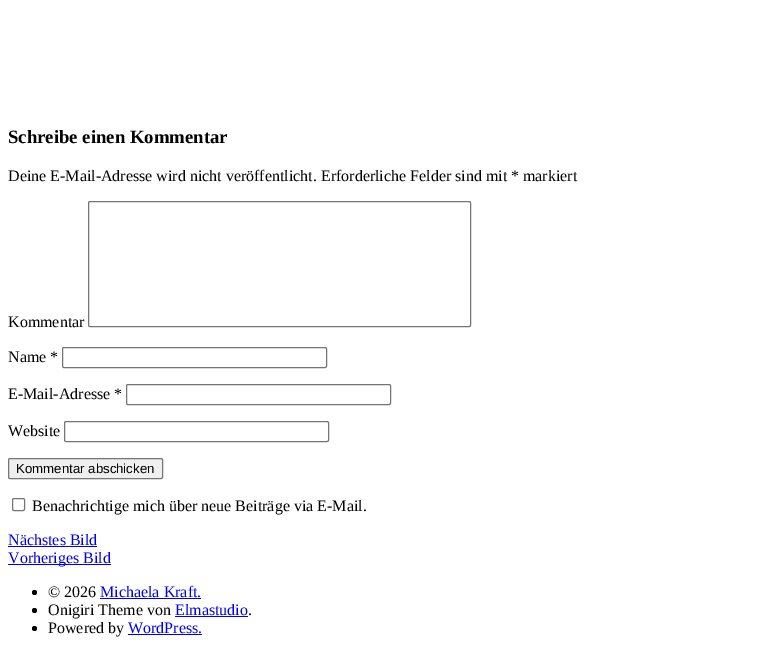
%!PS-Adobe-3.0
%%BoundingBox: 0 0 781 653
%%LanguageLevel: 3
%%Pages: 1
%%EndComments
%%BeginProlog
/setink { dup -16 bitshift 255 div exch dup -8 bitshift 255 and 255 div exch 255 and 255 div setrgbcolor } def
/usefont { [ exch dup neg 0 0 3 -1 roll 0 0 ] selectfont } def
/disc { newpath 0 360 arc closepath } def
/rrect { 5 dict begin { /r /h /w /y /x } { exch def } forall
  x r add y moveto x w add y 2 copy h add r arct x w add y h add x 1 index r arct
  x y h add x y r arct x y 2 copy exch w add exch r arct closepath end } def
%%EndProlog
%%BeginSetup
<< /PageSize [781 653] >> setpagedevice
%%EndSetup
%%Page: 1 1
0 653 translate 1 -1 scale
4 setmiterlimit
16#FFFFFF setink
0 0 781 653 rectfill
/LiberationSerif-Bold 18.75 usefont
16#000000 setink
8 143 moveto (Schreibe einen Kommentar) show
/LiberationSerif-Regular 16 usefont
8 181 moveto (Deine E-Mail-Adresse wird nicht veröffentlicht. Erforderliche Felder sind mit * markiert) show
8 327 moveto (Kommentar) show
16#767676 setink
88.5 201.5 382 125 1.5 rrect stroke
16#000000 setink
8 362 moveto (Name *) show
16#767676 setink
62.5 347.5 264 20 1.5 rrect stroke
16#000000 setink
8 399 moveto (E-Mail-Adresse *) show
16#767676 setink
126.5 384.5 264 20 1.5 rrect stroke
16#000000 setink
8 436 moveto (Website) show
16#767676 setink
64.5 421.5 264 20 1.5 rrect stroke
16#EFEFEF setink
8.5 458.5 154 20 1.5 rrect gsave fill grestore
16#767676 setink
stroke
/LiberationSans-Regular 13.25 usefont
16#000000 setink
16 473 moveto (Kommentar abschicken) show
16#767676 setink
12.5 498.5 12 12 1.5 rrect stroke
/LiberationSerif-Regular 16 usefont
16#000000 setink
32 511 moveto (Benachrichtige mich über neue Beiträge via E-Mail.) show
16#0000EE setink
8 545 moveto (Nächstes Bild) show
8 546 89 1 rectfill
8 564 103 1 rectfill
8 563 moveto (Vorheriges Bild) show
16#000000 setink
34.5 592.5 2.5 disc fill
48 597 moveto (© 2026) show
16#0000EE setink
100 597 moveto (Michaela Kraft.) show
100 598 101 1 rectfill
16#000000 setink
34.5 610.5 2.5 disc fill
48 615 moveto (Onigiri Theme von) show
16#0000EE setink
175 615 moveto (Elmastudio) show
175 616 73 1 rectfill
16#000000 setink
248 615 moveto (.) show
34.5 628.5 2.5 disc fill
48 633 moveto (Powered by) show
16#0000EE setink
128 633 moveto (WordPress.) show
128 634 74 1 rectfill
showpage
%%EOF
